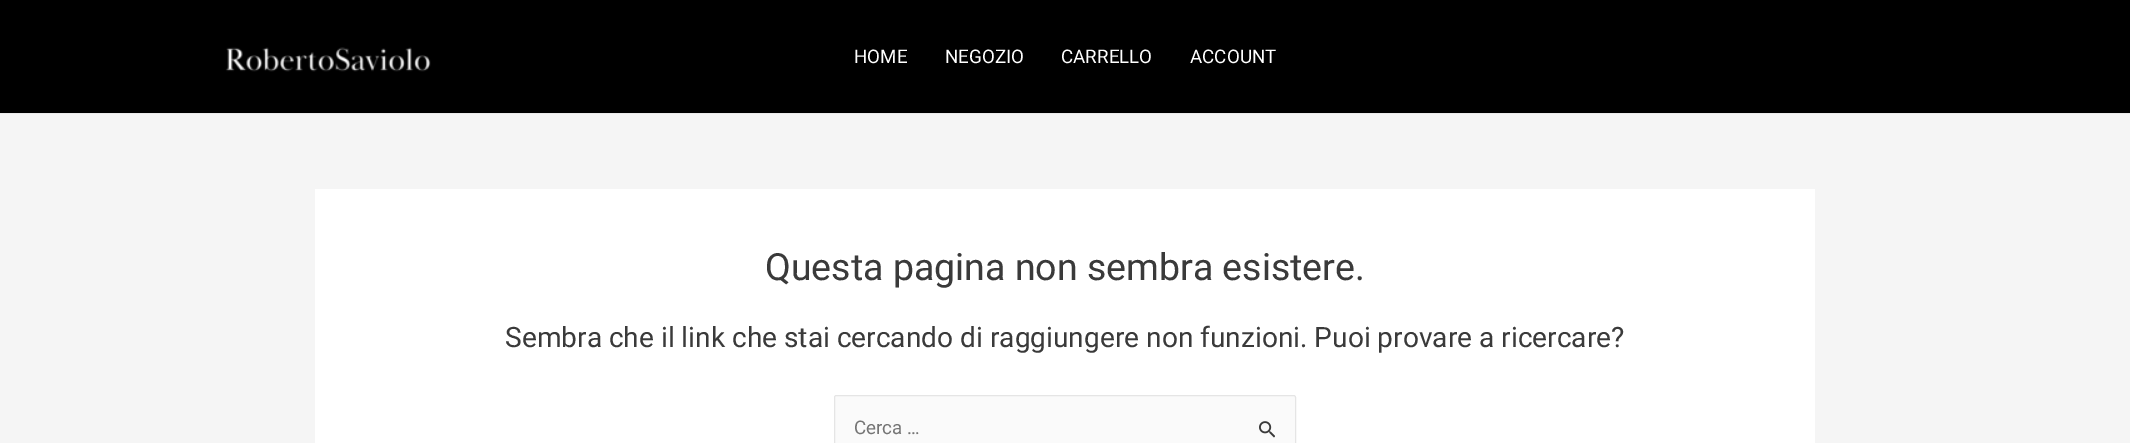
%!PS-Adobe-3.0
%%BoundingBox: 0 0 2130 443
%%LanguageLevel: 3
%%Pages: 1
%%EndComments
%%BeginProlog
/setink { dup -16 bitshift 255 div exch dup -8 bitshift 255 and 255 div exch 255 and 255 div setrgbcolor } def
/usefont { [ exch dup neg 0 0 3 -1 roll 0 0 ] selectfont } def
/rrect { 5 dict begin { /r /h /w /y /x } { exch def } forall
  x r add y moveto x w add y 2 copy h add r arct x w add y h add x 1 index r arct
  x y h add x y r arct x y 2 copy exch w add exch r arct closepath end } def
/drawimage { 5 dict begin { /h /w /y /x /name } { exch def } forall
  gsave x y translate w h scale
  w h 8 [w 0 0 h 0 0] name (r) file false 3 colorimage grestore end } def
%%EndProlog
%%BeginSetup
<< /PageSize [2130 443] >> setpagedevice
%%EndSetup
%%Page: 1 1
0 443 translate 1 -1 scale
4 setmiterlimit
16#F5F5F5 setink
0 0 2130 443 rectfill
16#000000 setink
0 0 2130 113 rectfill
16#EAEAEA setink
0 113 2130 1 rectfill
(img1.raw) 225 47 206 25 drawimage
/Roboto-Regular 18.75 usefont
16#FFFFFF setink
[
    [(HOME) 854 63]
    [(NEGOZIO) 945 63]
    [(CARRELLO) 1061 63]
    [(ACCOUNT) 1190 63]
] { aload pop moveto show } forall
315 189 1500 254 rectfill
/Roboto-Regular 37.5 usefont
16#3A3A3A setink
765 280 moveto (Questa pagina non sembra esistere.) show
/Roboto-Regular 28.1 usefont
505 347 moveto (Sembra che il link che stai cercando di raggiungere non funzioni. Puoi provare a ricercare?) show
16#FAFAFA setink
834.5 395.5 461 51 2 rrect gsave fill grestore
16#E5E5E5 setink
stroke
/Roboto-Regular 18.75 usefont
16#757575 setink
854 434 moveto (Cerca …) show
(img2.raw) 1259 421 16 17 drawimage
showpage
%%EOF
